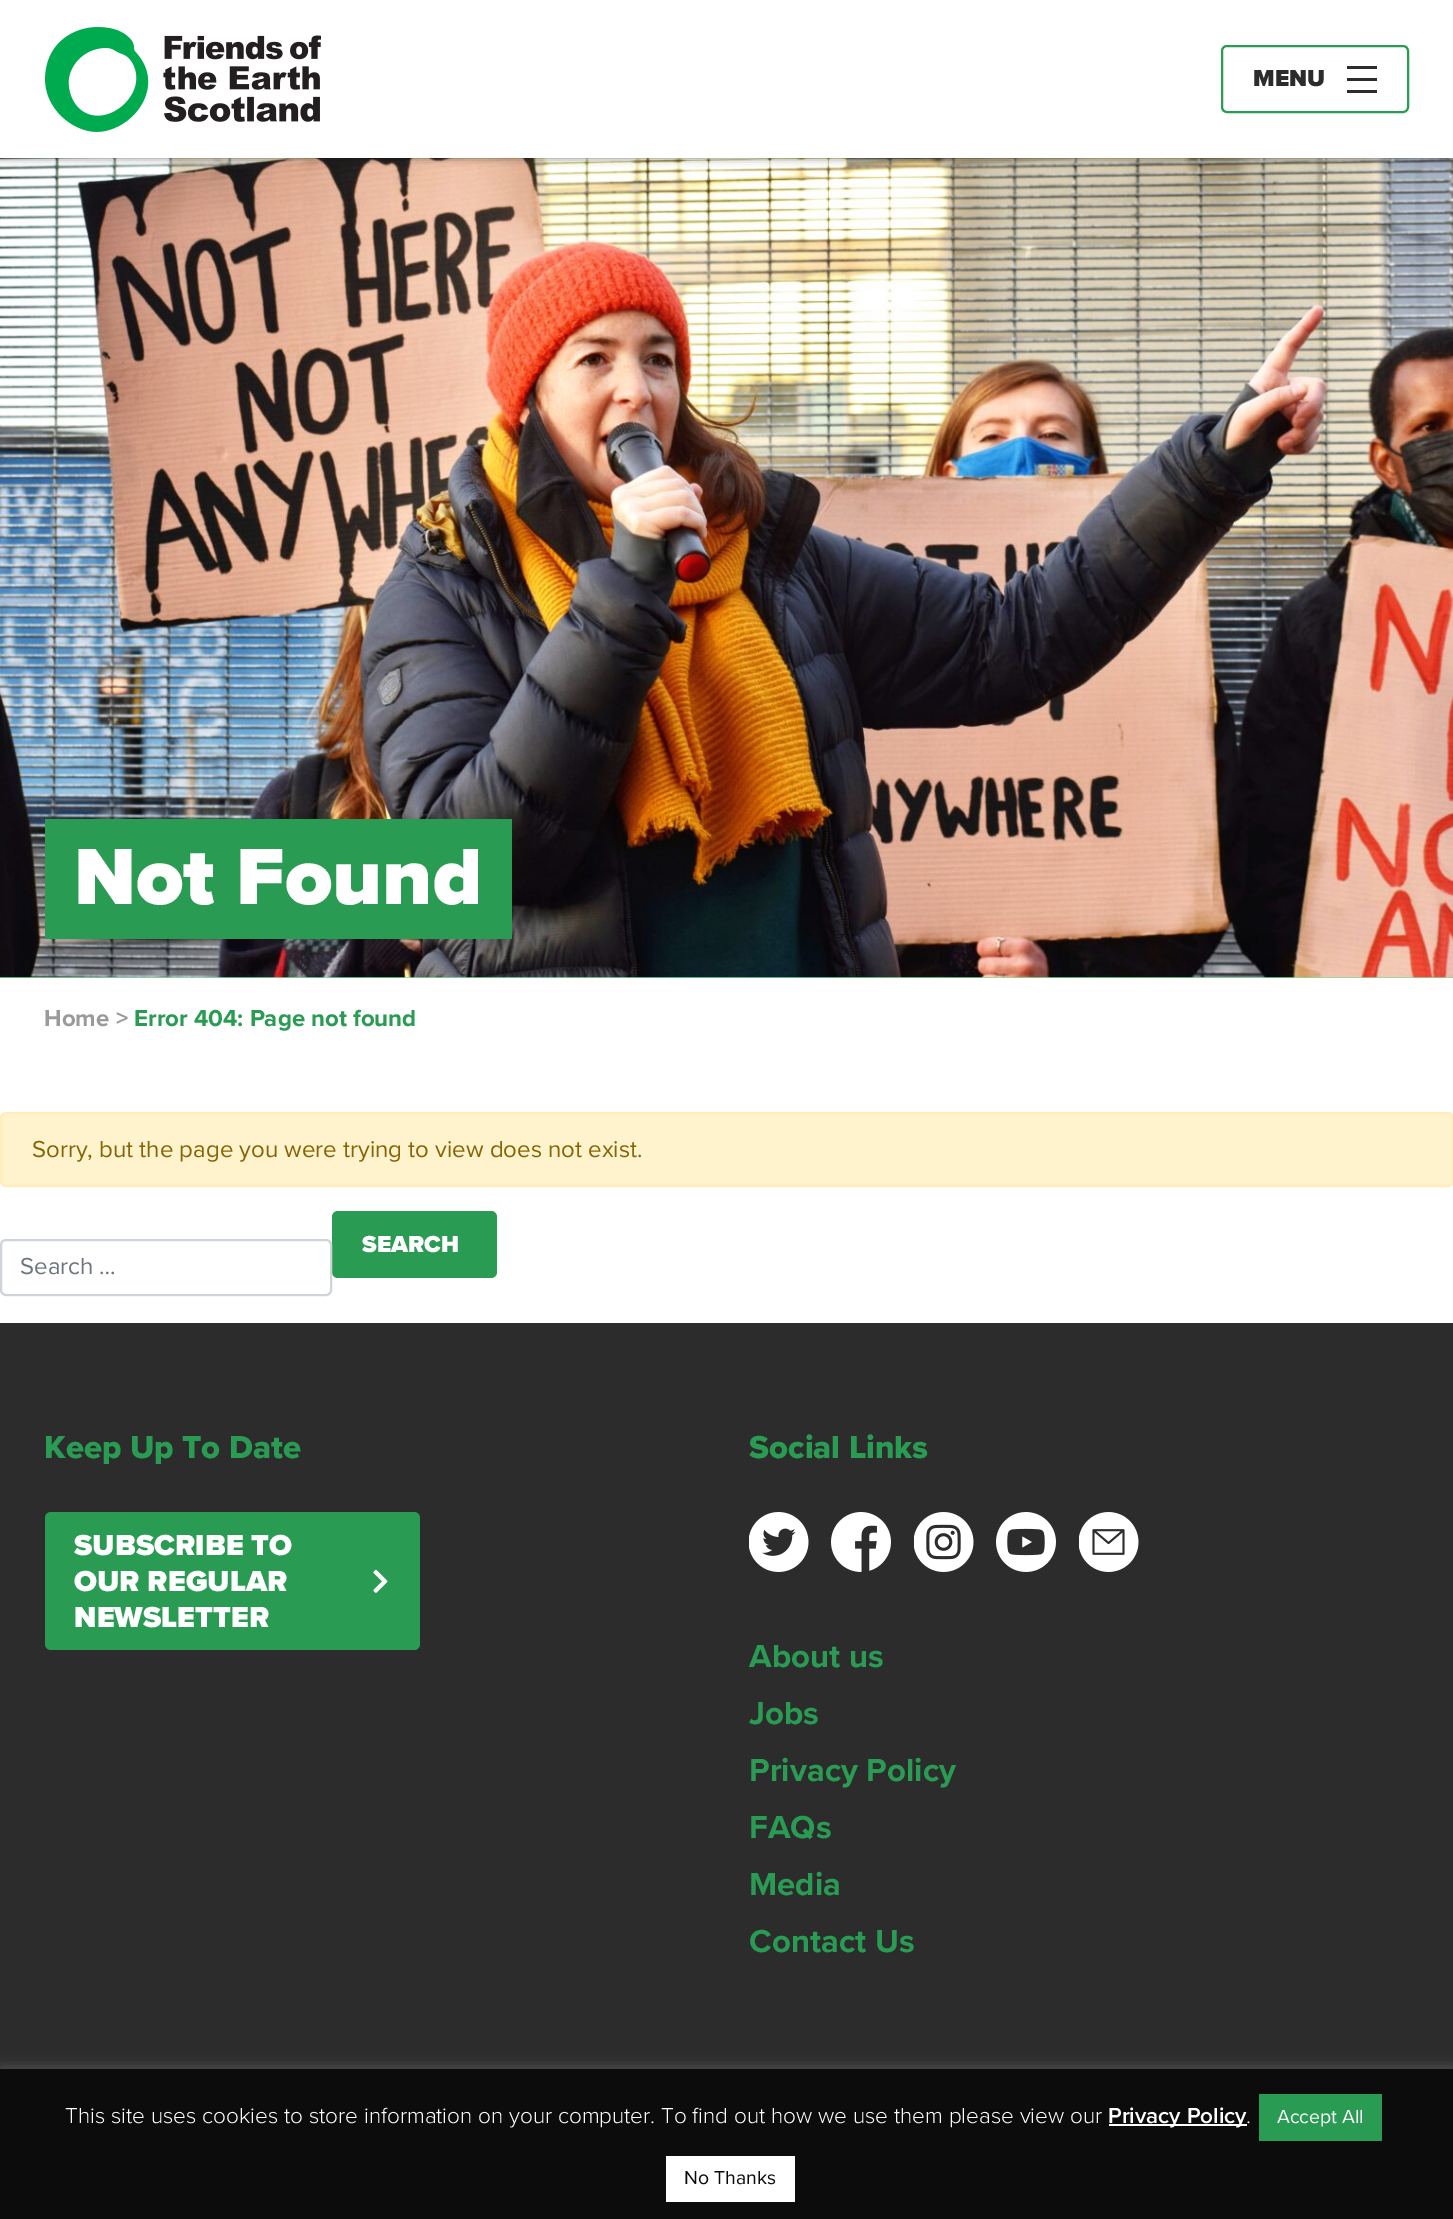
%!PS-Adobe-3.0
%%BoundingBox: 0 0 1453 2219
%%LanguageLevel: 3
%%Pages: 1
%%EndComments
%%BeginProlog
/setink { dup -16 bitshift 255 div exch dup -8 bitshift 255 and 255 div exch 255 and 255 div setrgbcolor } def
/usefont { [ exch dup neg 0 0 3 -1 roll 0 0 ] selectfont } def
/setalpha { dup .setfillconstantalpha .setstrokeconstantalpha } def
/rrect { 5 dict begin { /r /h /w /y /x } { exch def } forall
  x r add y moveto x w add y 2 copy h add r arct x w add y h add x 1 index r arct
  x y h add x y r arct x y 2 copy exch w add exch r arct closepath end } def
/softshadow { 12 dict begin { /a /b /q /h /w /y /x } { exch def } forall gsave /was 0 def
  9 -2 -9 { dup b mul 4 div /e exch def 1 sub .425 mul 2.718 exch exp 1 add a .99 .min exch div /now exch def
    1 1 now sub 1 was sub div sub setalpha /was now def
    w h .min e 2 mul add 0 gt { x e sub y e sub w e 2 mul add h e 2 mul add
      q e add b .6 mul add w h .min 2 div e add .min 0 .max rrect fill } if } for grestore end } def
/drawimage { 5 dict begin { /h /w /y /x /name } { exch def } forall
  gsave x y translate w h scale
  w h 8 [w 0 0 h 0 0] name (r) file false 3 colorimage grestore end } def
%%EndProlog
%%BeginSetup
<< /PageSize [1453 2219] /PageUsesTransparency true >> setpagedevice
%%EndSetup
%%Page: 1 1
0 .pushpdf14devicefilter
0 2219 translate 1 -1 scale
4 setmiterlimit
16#FFFFFF setink
0 0 1453 2219 rectfill
16#80DDA1 setink
0 977 1453 1 rectfill
(img2.raw) 0 158 1453 820 drawimage
16#000000 setink
0 0 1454 158 0 4 0.5 softshadow
16#FFFFFF setink
0 0 1453 158 rectfill
(img1.raw) 45 27 276 105 drawimage
16#299B52 setink
2 setlinewidth
1222 46 186 66 5 rrect stroke
/ProximaNova-Black 24 usefont
16#2C2C2C setink
1253 86 moveto (MENU) show
[
    [1347 66 30 3 16#2C2C2C]
    [1347 78 30 3 16#2C2C2C]
    [1347 90 30 3 16#2C2C2C]
    [45 819 467 120 16#299B52]
] { aload pop setink rectfill } forall
/ProximaNova-Black 82.5 usefont
16#FFFFFF setink
74 904 moveto (Not Found) show
/ProximaNova-Bold 24 usefont
16#9A9A9A setink
44 1026 moveto (Home) show
116 1026 moveto (>) show
16#299B52 setink
134 1026 moveto (Error 404: Page not found) show
16#FFF3CD setink
1 1113 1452 73 5 rrect gsave fill grestore
16#FFEEBA setink
stroke
/ProximaNova-Regular 24 usefont
16#856404 setink
32 1157 moveto (Sorry, but the page you were trying to view does not exist.) show
16#299B52 setink
332 1211 165 67 6 rrect fill
/ProximaNova-Black 24 usefont
16#FFFFFF setink
362 1252 moveto (SEARCH) show
16#CED4DA setink
1 1240 330 55 5 rrect stroke
/ProximaNova-Regular 24 usefont
16#6C757D setink
20 1274 moveto (Search …) show
16#2C2C2C setink
0 1323 1453 746 rectfill
/ProximaNova-ExtraBold 33 usefont
16#299B52 setink
44 1458 moveto (Keep Up To Date) show
45 1512 375 138 6 rrect fill
/ProximaNova-Black 30 usefont
16#FFFFFF setink
74 1555 moveto (SUBSCRIBE TO) show
74 1591 moveto (OUR REGULAR) show
(img3.raw) 373 1569 15 24 drawimage
74 1627 moveto (NEWSLETTER) show
/ProximaNova-ExtraBold 33 usefont
16#299B52 setink
749 1458 moveto (Social Links) show
(img4.raw) 749 1512 60 60 drawimage
(img5.raw) 831 1512 60 60 drawimage
(img6.raw) 914 1512 60 60 drawimage
(img7.raw) 996 1512 60 60 drawimage
(img8.raw) 1079 1512 60 60 drawimage
/ProximaNova-Bold 33 usefont
[
    [(About us) 749 1667]
    [(Jobs) 749 1724]
    [(Privacy Policy) 749 1781]
    [(FAQs) 749 1838]
    [(Media) 749 1895]
    [(Contact Us) 749 1952]
] { aload pop moveto show } forall
16#ACABAB setink
0 2067 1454 152 0 7.5 0.3 softshadow
16#0C0C0C setink
0 2069 1453 150 rectfill
/ProximaNova-Light 22.5 usefont
16#FFFFFF setink
65 2123 moveto (This site uses cookies to store information on your computer. To find out how we use them please view our) show
1109 2124 138 2 rectfill
/ProximaNova-SemiBold 22.5 usefont
1108 2123 moveto (Privacy Policy) show
/ProximaNova-Light 22.5 usefont
1246 2123 moveto (.) show
16#299B52 setink
1259 2094 123 47 rectfill
/ProximaNova-Regular 19.5 usefont
16#FFFFFF setink
1277 2123 moveto (Accept All) show
666 2156 129 46 rectfill
16#0A0A0A setink
684 2184 moveto (No Thanks) show
.poppdf14devicefilter showpage
%%EOF
